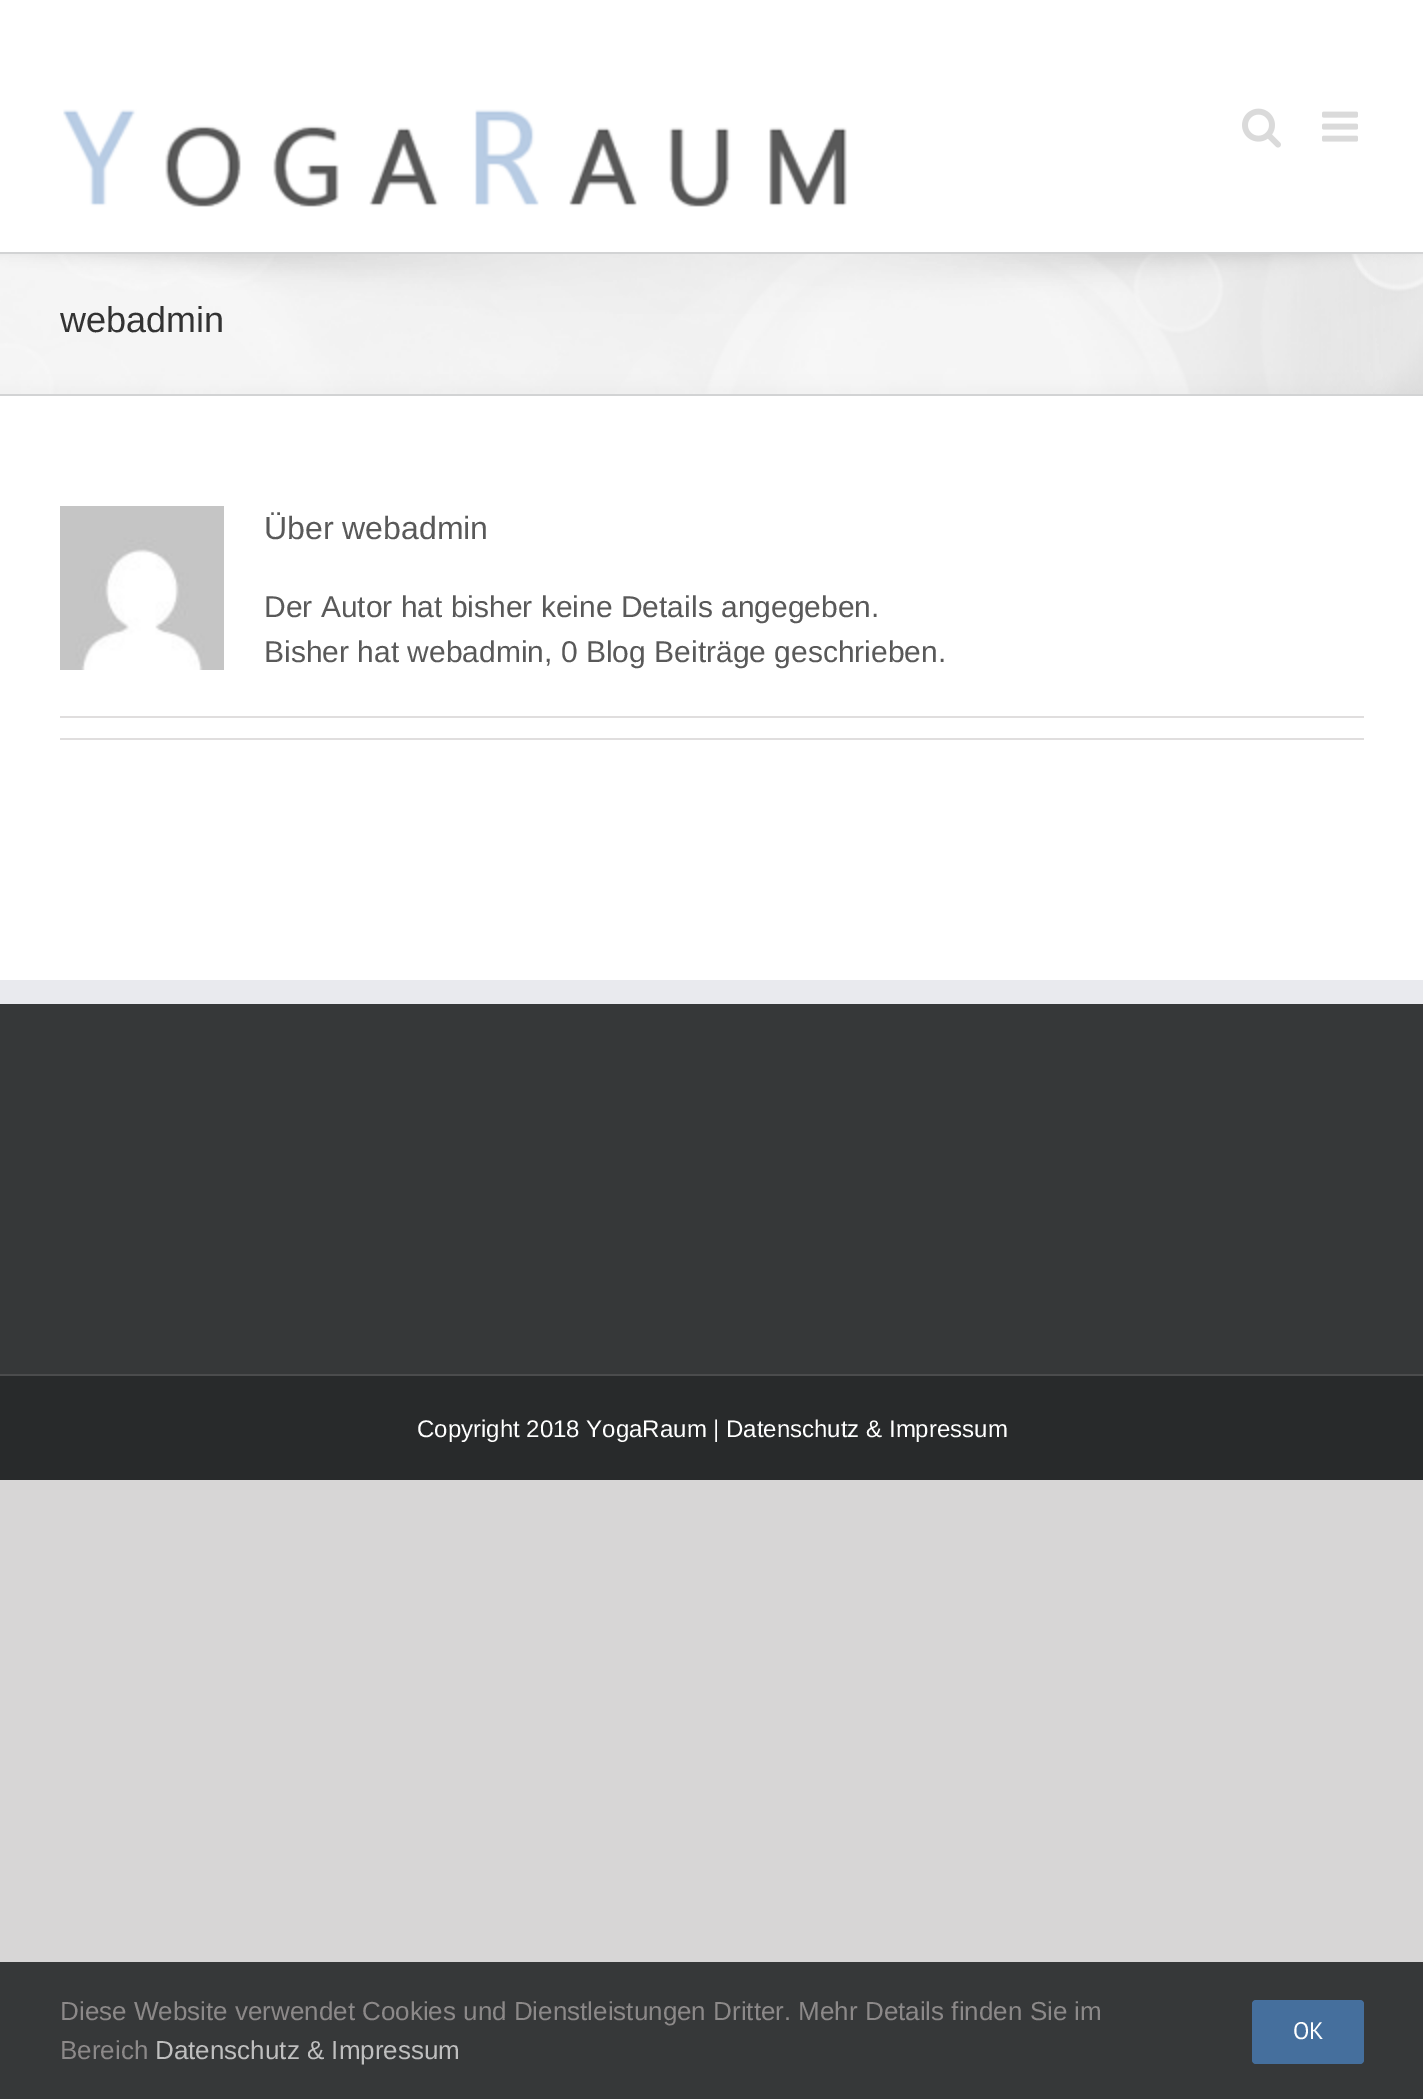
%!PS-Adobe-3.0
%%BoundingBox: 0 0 1423 2099
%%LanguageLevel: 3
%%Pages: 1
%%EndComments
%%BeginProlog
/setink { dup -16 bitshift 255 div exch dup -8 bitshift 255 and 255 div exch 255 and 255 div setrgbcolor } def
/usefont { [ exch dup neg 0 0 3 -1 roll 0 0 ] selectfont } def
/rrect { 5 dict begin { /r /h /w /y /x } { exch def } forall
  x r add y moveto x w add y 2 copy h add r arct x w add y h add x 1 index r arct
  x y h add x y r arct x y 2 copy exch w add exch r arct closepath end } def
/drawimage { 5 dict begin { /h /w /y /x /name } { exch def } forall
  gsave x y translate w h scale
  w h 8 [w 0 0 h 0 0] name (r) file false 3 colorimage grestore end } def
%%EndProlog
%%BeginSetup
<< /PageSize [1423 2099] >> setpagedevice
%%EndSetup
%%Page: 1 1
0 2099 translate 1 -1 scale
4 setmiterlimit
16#D7D6D6 setink
0 0 1423 2099 rectfill
16#FFFFFF setink
0 0 1423 980 rectfill
(img1.raw) 63 109 784 98 drawimage
(img2.raw) 1242 108 39 40 drawimage
(img3.raw) 1322 111 36 31 drawimage
16#F6F6F6 setink
0 254 1423 140 rectfill
(img4.raw) 0 254 1423 140 drawimage
16#D2D3D4 setink
0 252 1423 2 rectfill
0 394 1423 2 rectfill
/LiberationSans-Regular 36 usefont
16#333333 setink
60 332 moveto (webadmin) show
(img5.raw) 60 506 164 164 drawimage
/LiberationSans-Regular 32 usefont
16#595959 setink
264 539 moveto (Über webadmin) show
/LiberationSans-Regular 30 usefont
264 617 moveto (Der Autor hat bisher keine Details angegeben.) show
264 662 moveto (Bisher hat webadmin, 0 Blog Beiträge geschrieben.) show
[
    [60 716 1304 2 16#E0DEDE]
    [60 738 1304 2 16#E0DEDE]
    [0 1004 1423 370 16#363839]
    [0 980 1423 24 16#E9EAEE]
    [0 1376 1423 104 16#282A2B]
    [0 1374 1423 2 16#4B4C4D]
] { aload pop setink rectfill } forall
/LiberationSans-Regular 24 usefont
16#FFFFFF setink
417 1437 moveto (Copyright 2018 YogaRaum | Datenschutz & Impressum) show
16#363839 setink
0 1962 1423 137 rectfill
/LiberationSans-Regular 26 usefont
16#8C8989 setink
60 2020 moveto (Diese Website verwendet Cookies und Dienstleistungen Dritter. Mehr Details finden Sie im) show
60 2059 moveto (Bereich) show
16#BFBFBF setink
155 2059 moveto (Datenschutz & Impressum) show
16#456F9D setink
1252 2000 112 64 4 rrect fill
/PTSans-Regular 24 usefont
16#FFFFFF setink
1293 2039 moveto (OK) show
showpage
%%EOF
